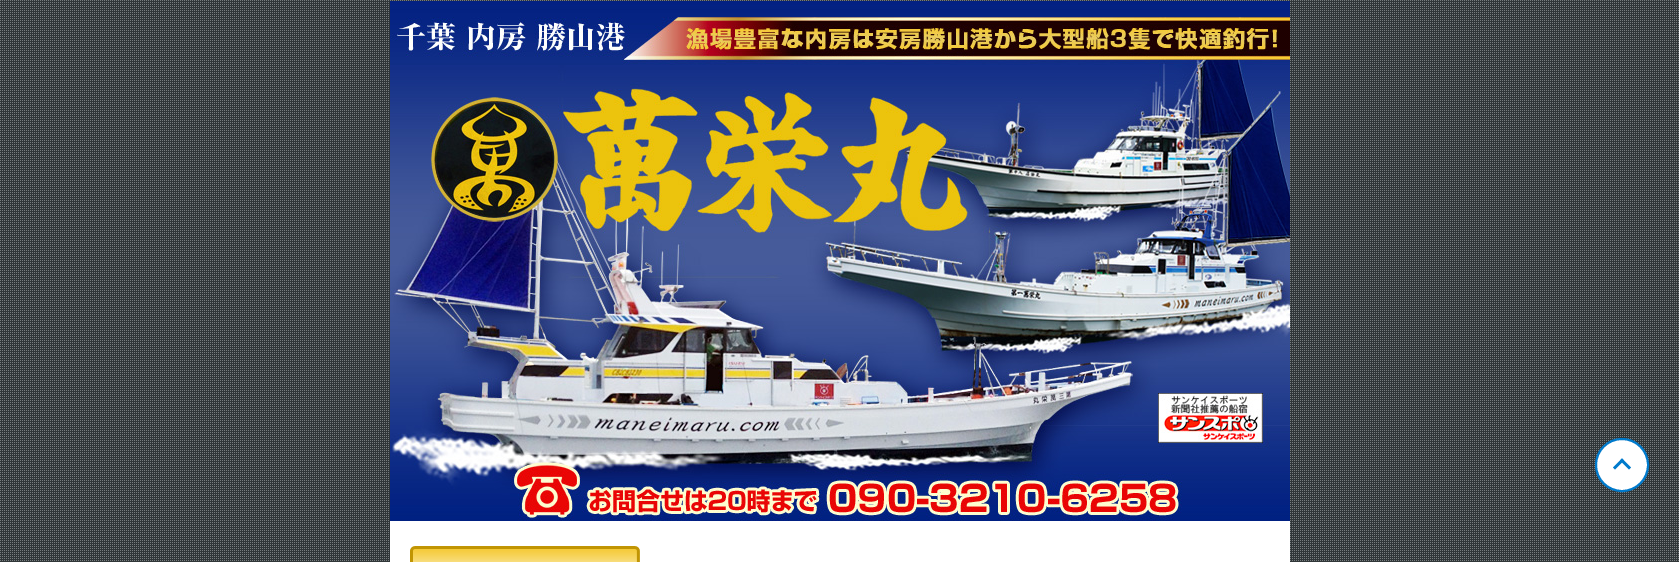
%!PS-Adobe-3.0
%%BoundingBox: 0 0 1679 562
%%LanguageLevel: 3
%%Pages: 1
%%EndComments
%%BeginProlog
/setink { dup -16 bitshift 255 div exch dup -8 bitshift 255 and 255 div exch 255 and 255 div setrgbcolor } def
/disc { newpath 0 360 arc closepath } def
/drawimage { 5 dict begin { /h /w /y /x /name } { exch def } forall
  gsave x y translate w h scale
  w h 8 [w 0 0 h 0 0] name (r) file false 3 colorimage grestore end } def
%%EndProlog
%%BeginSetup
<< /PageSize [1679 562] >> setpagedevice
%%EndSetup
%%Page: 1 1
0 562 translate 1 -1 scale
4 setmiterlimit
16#FFFFFF setink
0 0 1679 562 rectfill
(img1.raw) 0 0 1679 562 drawimage
390 521 900 41 rectfill
(img2.raw) 390 1 900 520 drawimage
(img3.raw) 410 546 230 16 drawimage
1622 465 26 disc gsave fill grestore
16#007ACC setink
2 setlinewidth
stroke
1613 467.5 moveto 1622 458.5 lineto 1624 460.5 lineto 1615 469.5 lineto closepath fill
1620 460.5 moveto 1622 458.5 lineto 1631 467.5 lineto 1629 469.5 lineto closepath fill
showpage
%%EOF
